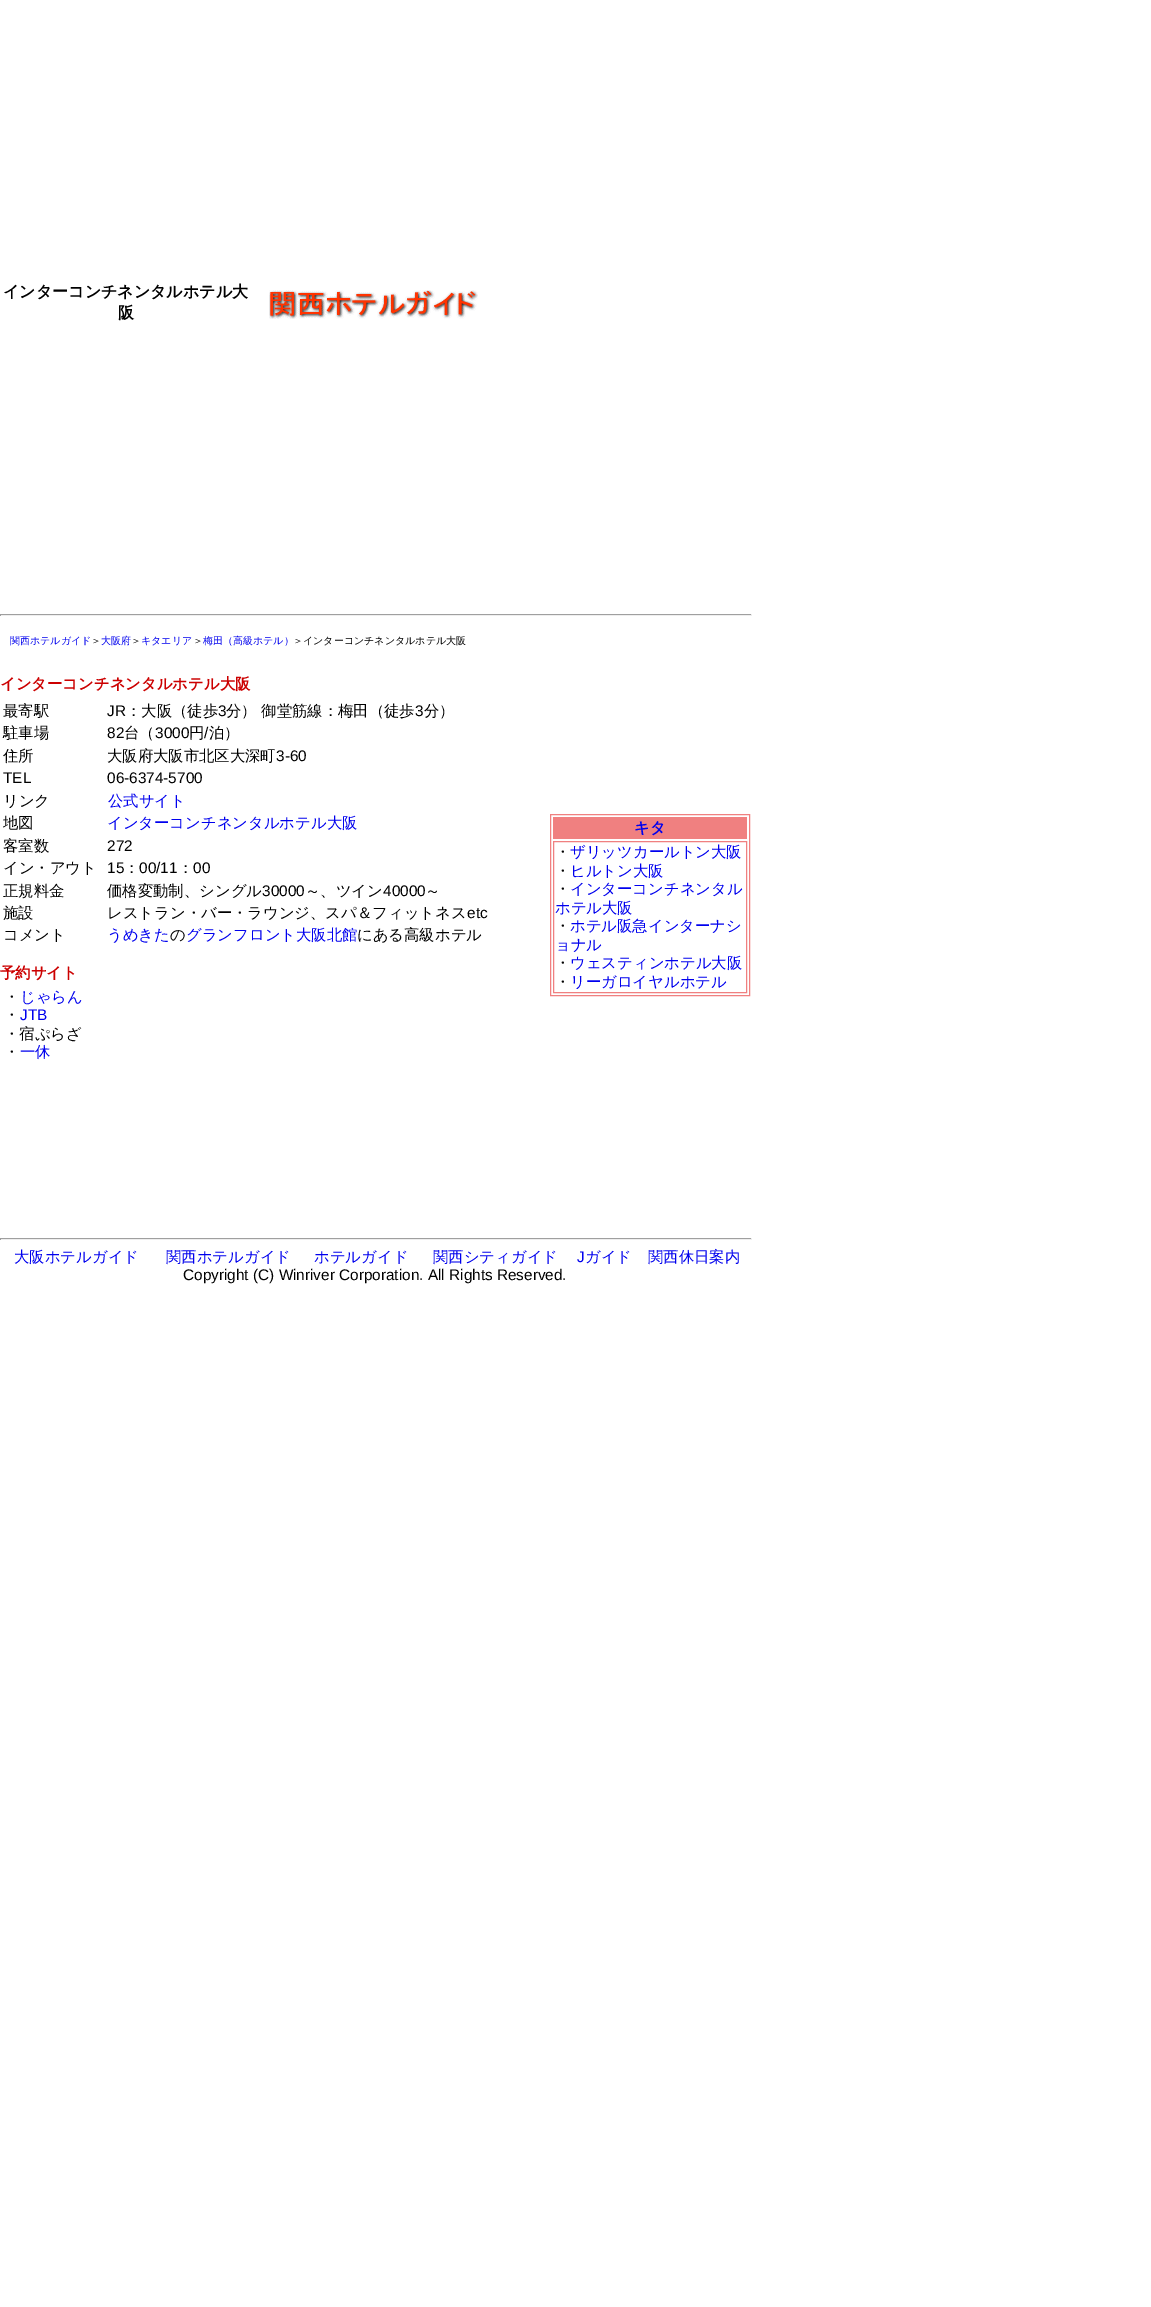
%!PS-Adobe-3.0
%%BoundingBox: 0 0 1151 2307
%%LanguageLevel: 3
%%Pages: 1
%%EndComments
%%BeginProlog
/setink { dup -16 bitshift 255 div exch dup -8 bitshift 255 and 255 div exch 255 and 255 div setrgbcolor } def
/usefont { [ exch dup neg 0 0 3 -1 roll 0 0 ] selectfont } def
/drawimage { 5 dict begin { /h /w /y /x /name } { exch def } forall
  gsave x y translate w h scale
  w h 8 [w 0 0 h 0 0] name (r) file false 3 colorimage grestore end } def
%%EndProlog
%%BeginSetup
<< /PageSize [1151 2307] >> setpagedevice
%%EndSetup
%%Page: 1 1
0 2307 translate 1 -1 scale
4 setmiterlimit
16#FFFFFF setink
0 0 1151 2307 rectfill
/WenQuanYiZenHei-Bold 16 usefont
16#000000 setink
3 297 moveto (インターコンチネンタルホテル大) show
118 318 moveto (阪) show
(img1.raw) 269 290 209 29 drawimage
[
    [0 614 752 1 16#9F9F9F]
    [751 614 1 2 16#EEEEEE]
    [0 615 752 1 16#EEEEEE]
    [0 614 1 2 16#9F9F9F]
] { aload pop setink rectfill } forall
/WenQuanYiZenHei-Medium 10 usefont
16#0000EE setink
10 644 moveto (関西ホテルガイド) show
16#000000 setink
91 644 moveto (＞) show
16#0000EE setink
101 644 moveto (大阪府) show
16#000000 setink
131 644 moveto (＞) show
16#0000EE setink
141 644 moveto (キタエリア) show
16#000000 setink
193 644 moveto (＞) show
16#0000EE setink
203 644 moveto (梅田（高級ホテル）) show
16#000000 setink
293 644 moveto (＞インターコンチネンタルホテル大阪) show
/WenQuanYiZenHei-Bold 15.35 usefont
16#CC0000 setink
0 689 moveto (インターコンチネンタルホテル大阪) show
/WenQuanYiZenHei-Medium 15.35 usefont
16#000000 setink
3 716 moveto (最寄駅) show
/LiberationSans-Regular 15.35 usefont
107 716 moveto (JR) show
/WenQuanYiZenHei-Medium 15.35 usefont
126 716 moveto (：大阪（徒歩) show
/LiberationSans-Regular 15.35 usefont
218 716 moveto (3) show
/WenQuanYiZenHei-Medium 15.35 usefont
226 716 moveto (分） 御堂筋線：梅田（徒歩) show
/LiberationSans-Regular 15.35 usefont
415 716 moveto (3) show
/WenQuanYiZenHei-Medium 15.35 usefont
424 716 moveto (分）) show
3 738 moveto (駐車場) show
/LiberationSans-Regular 15.35 usefont
107 738 moveto (82) show
/WenQuanYiZenHei-Medium 15.35 usefont
124 738 moveto (台（) show
/LiberationSans-Regular 15.35 usefont
155 738 moveto (3000) show
/WenQuanYiZenHei-Medium 15.35 usefont
189 738 moveto (円) show
/LiberationSans-Regular 15.35 usefont
204 738 moveto (/) show
/WenQuanYiZenHei-Medium 15.35 usefont
[
    [(泊）) 209 738]
    [(住所) 3 761]
    [(大阪府大阪市北区大深町) 107 761]
] { aload pop moveto show } forall
/LiberationSans-Regular 15.35 usefont
[
    [(3-60) 276 761]
    [(TEL) 3 783]
    [(06-6374-5700) 107 783]
] { aload pop moveto show } forall
/WenQuanYiZenHei-Medium 15.35 usefont
3 806 moveto (リンク) show
16#0000EE setink
108 806 moveto (公式サイト) show
16#000000 setink
3 828 moveto (地図) show
16#0000EE setink
107 828 moveto (インターコンチネンタルホテル大阪) show
16#000000 setink
3 851 moveto (客室数) show
/LiberationSans-Regular 15.35 usefont
107 851 moveto (272) show
/WenQuanYiZenHei-Medium 15.35 usefont
3 873 moveto (イン・アウト) show
/LiberationSans-Regular 15.35 usefont
107 873 moveto (15) show
/WenQuanYiZenHei-Medium 15.35 usefont
124 873 moveto (：) show
/LiberationSans-Regular 15.35 usefont
139 873 moveto (00/11) show
/WenQuanYiZenHei-Medium 15.35 usefont
178 873 moveto (：) show
/LiberationSans-Regular 15.35 usefont
193 873 moveto (00) show
/WenQuanYiZenHei-Medium 15.35 usefont
3 896 moveto (正規料金) show
107 896 moveto (価格変動制、シングル) show
/LiberationSans-Regular 15.35 usefont
262 896 moveto (30000) show
/WenQuanYiZenHei-Medium 15.35 usefont
305 896 moveto (～、ツイン) show
/LiberationSans-Regular 15.35 usefont
383 896 moveto (40000) show
/WenQuanYiZenHei-Medium 15.35 usefont
[
    [(～) 425 896]
    [(施設) 3 918]
    [(レストラン・バー・ラウンジ、スパ＆フィットネス) 107 918]
] { aload pop moveto show } forall
/LiberationSans-Regular 15.35 usefont
467 918 moveto (etc) show
/WenQuanYiZenHei-Medium 15.35 usefont
3 940 moveto (コメント) show
16#0000EE setink
107 940 moveto (うめきた) show
16#000000 setink
170 940 moveto (の) show
16#0000EE setink
186 940 moveto (グランフロント大阪北館) show
16#000000 setink
357 940 moveto (にある高級ホテル) show
/WenQuanYiZenHei-Bold 15.35 usefont
16#CC0000 setink
0 978 moveto (予約サイト) show
/WenQuanYiZenHei-Medium 15.35 usefont
16#000000 setink
4 1002 moveto (・) show
16#0000EE setink
20 1002 moveto (じゃらん) show
16#000000 setink
4 1020 moveto (・) show
/LiberationSans-Regular 15.35 usefont
16#0000EE setink
20 1020 moveto (JTB) show
/WenQuanYiZenHei-Medium 15.35 usefont
16#000000 setink
4 1039 moveto (・宿ぷらざ) show
4 1057 moveto (・) show
16#0000EE setink
20 1057 moveto (一休) show
16#F08080 setink
550.5 814.5 199 181 rectstroke
553 817 194 22 rectfill
/WenQuanYiZenHei-Bold 15.35 usefont
16#0000EE setink
634 833 moveto (キタ) show
16#F08080 setink
553.5 841.5 193 151 rectstroke
/WenQuanYiZenHei-Medium 15.35 usefont
16#000000 setink
555 857 moveto (・) show
16#0000EE setink
570 857 moveto (ザリッツカールトン大阪) show
16#000000 setink
555 876 moveto (・) show
16#0000EE setink
570 876 moveto (ヒルトン大阪) show
16#000000 setink
555 894 moveto (・) show
16#0000EE setink
570 894 moveto (インターコンチネンタル) show
555 913 moveto (ホテル大阪) show
16#000000 setink
555 931 moveto (・) show
16#0000EE setink
570 931 moveto (ホテル阪急インターナシ) show
555 950 moveto (ョナル) show
16#000000 setink
555 968 moveto (・) show
16#0000EE setink
570 968 moveto (ウェスティンホテル大阪) show
16#000000 setink
555 987 moveto (・) show
16#0000EE setink
570 987 moveto (リーガロイヤルホテル) show
[
    [0 1238 752 1 16#9F9F9F]
    [751 1238 1 2 16#EEEEEE]
    [0 1239 752 1 16#EEEEEE]
    [0 1238 1 2 16#9F9F9F]
] { aload pop setink rectfill } forall
16#0000EE setink
[
    [(大阪ホテルガイド) 14 1262]
    [(関西ホテルガイド) 166 1262]
    [(ホテルガイド) 314 1262]
    [(関西シティガイド) 433 1262]
] { aload pop moveto show } forall
/LiberationSans-Regular 15.35 usefont
577 1262 moveto (J) show
/WenQuanYiZenHei-Medium 15.35 usefont
585 1262 moveto (ガイド) show
648 1262 moveto (関西休日案内) show
/LiberationSans-Regular 15.35 usefont
16#000000 setink
183 1280 moveto (Copyright \(C\) Winriver Corporation. All Rights Reserved.) show
showpage
%%EOF
